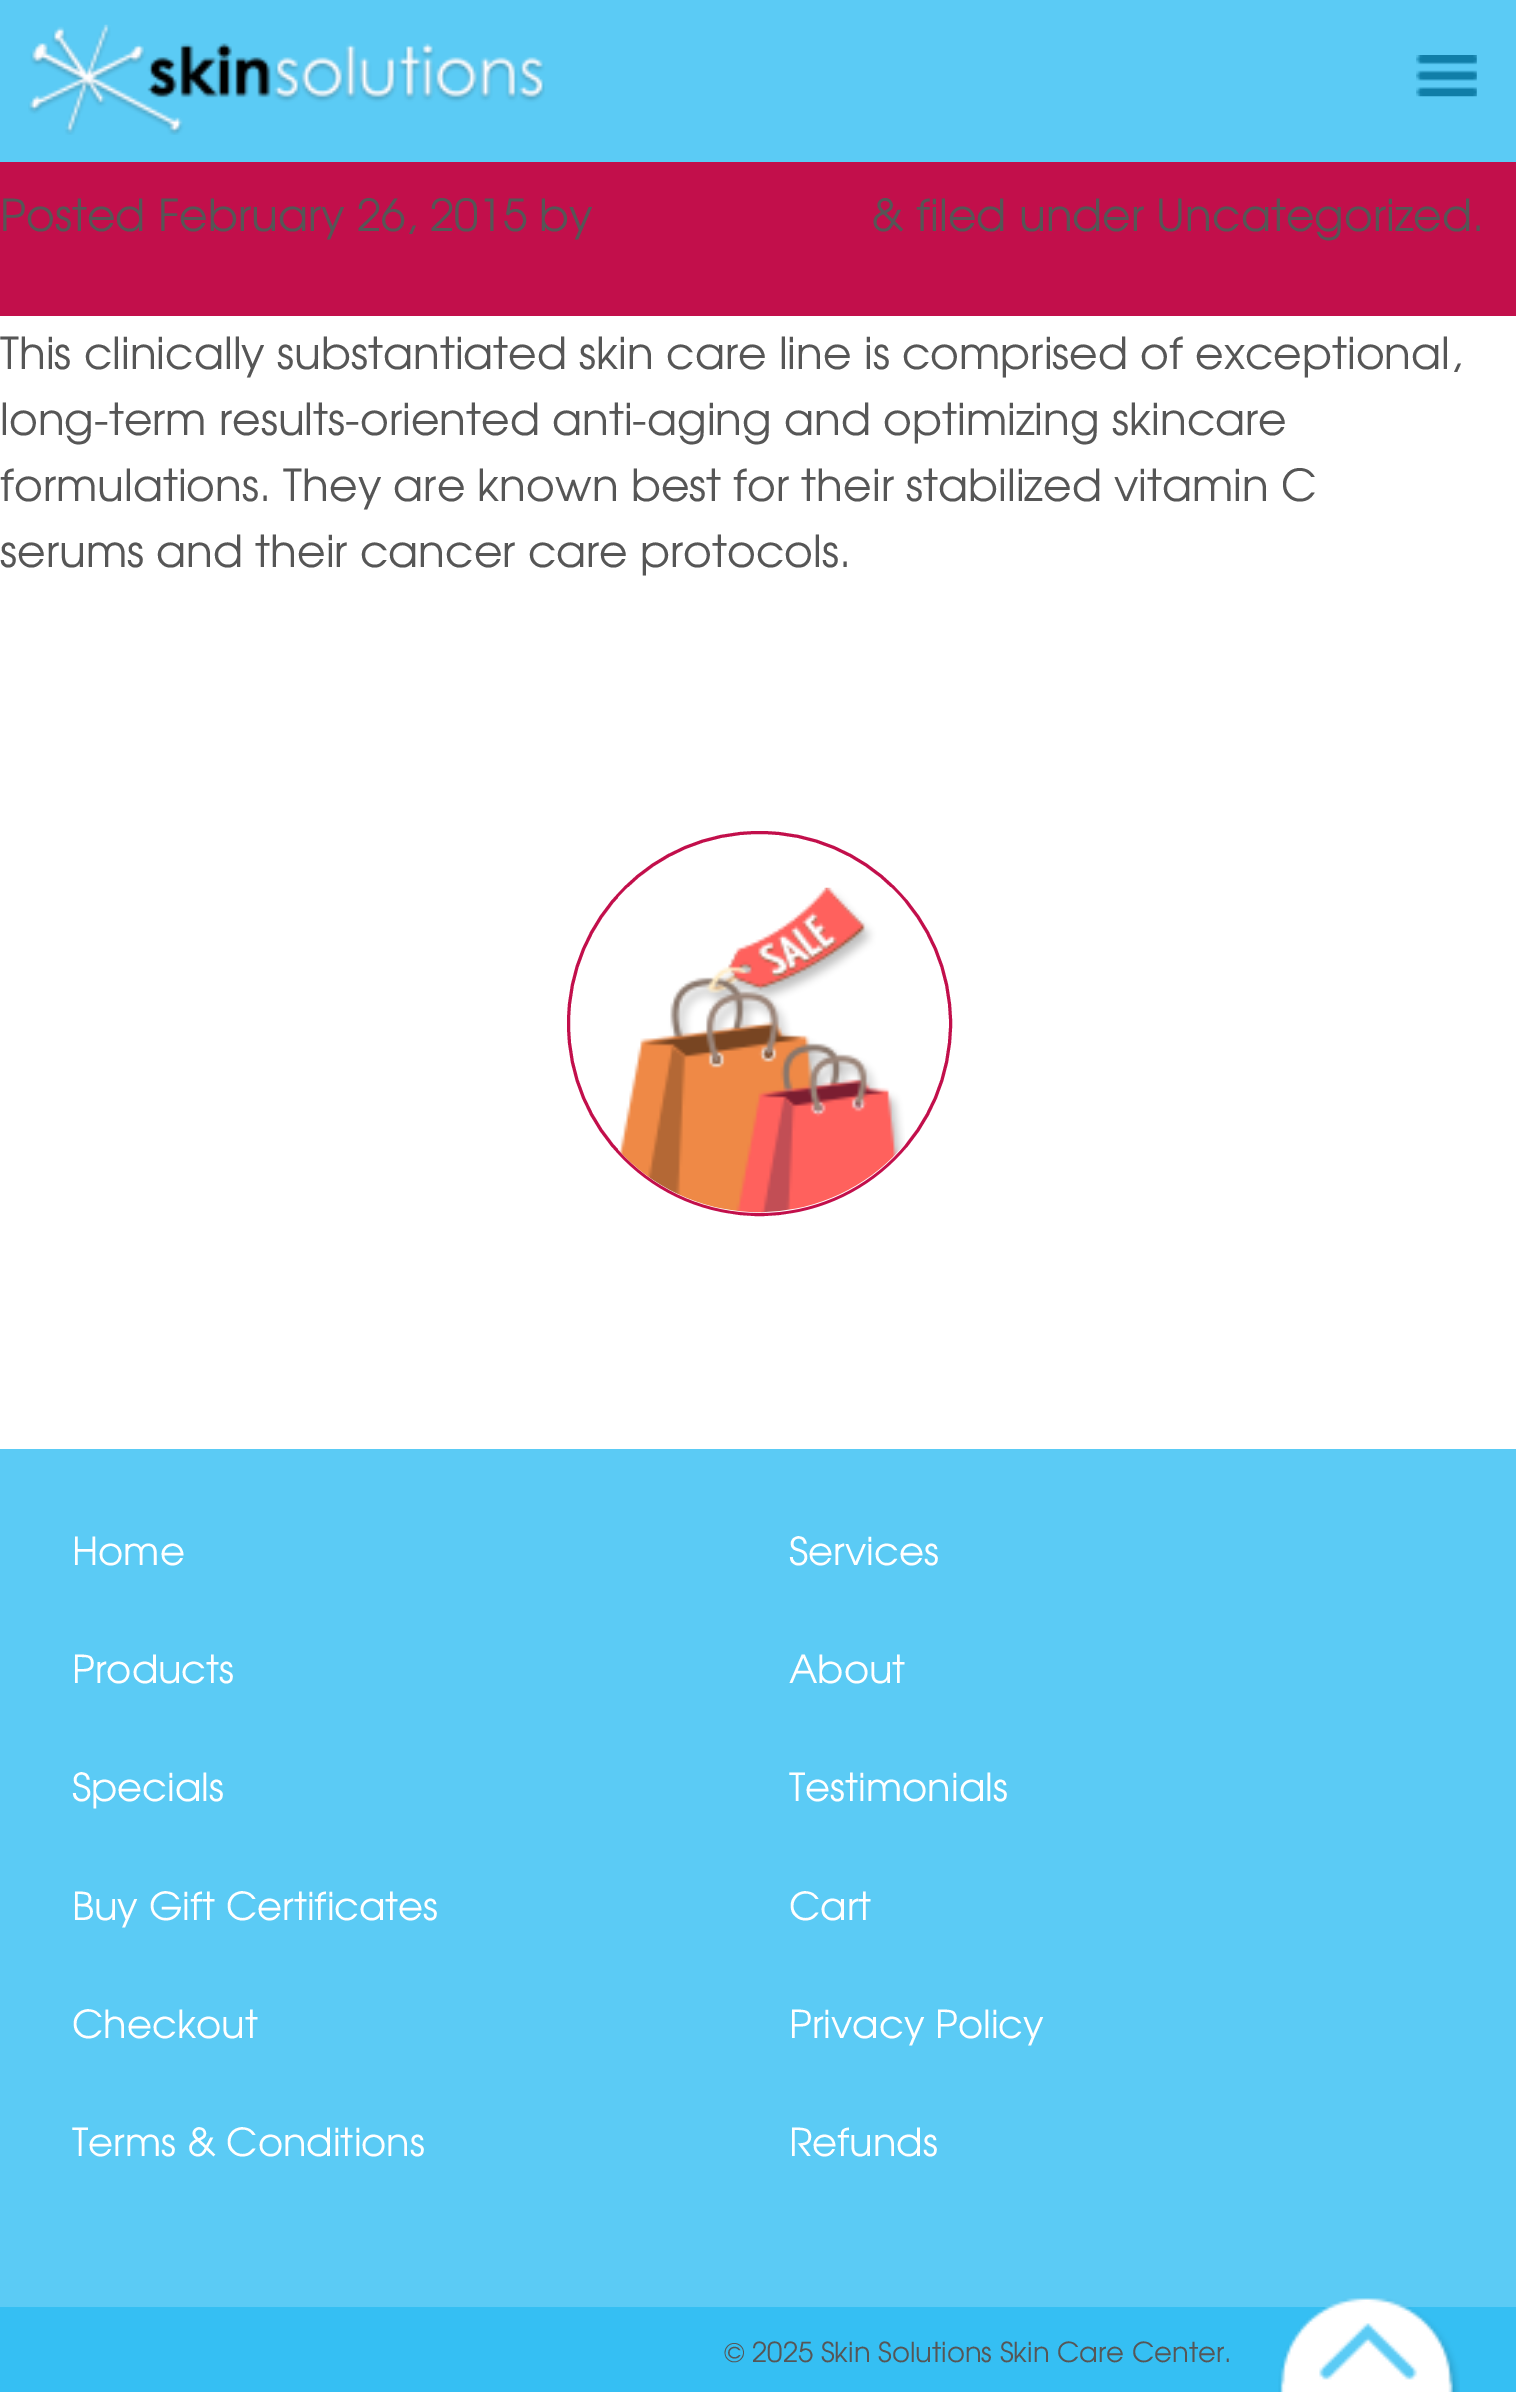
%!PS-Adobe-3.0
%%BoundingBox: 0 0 1516 2392
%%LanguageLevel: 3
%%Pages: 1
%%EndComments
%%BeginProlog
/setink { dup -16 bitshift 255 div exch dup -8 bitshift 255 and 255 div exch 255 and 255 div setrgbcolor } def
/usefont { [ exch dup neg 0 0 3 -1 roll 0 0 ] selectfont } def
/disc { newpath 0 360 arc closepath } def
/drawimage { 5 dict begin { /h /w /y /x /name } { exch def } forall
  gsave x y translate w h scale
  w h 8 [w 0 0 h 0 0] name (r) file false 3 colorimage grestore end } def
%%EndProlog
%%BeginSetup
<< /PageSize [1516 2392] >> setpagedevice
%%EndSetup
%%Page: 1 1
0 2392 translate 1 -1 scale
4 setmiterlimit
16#FFFFFF setink
0 0 1516 2392 rectfill
16#5BCBF5 setink
0 0 1516 162 rectfill
(img1.raw) 28 24 517 111 drawimage
(img2.raw) 1416 55 61 42 drawimage
16#C20F4B setink
0 162 1516 154 rectfill
/TeXGyreAdventor-Regular 44 usefont
16#565656 setink
[
    [(Posted February 26, 2015 by) 0 231]
    [(& filed under Uncategorized.) 871 231]
    [(This clinically substantiated skin care line is comprised of exceptional,) 0 369]
    [(long-term results-oriented anti-aging and optimizing skincare) 0 435]
    [(formulations. They are known best for their stabilized vitamin C) 0 501]
    [(serums and their cancer care protocols.) 0 567]
] { aload pop moveto show } forall
16#C20F4B setink
3 setlinewidth
759.5 1023.5 191 disc stroke
(img3.raw) 618 887 287 326 drawimage
16#5BCBF5 setink
0 1449 1516 858 rectfill
/TeXGyreAdventor-Regular 38.5 usefont
16#FFFFFF setink
[
    [(Home) 72 1565]
    [(Services) 789 1565]
    [(Products) 72 1683]
    [(About) 789 1683]
    [(Specials) 72 1801]
    [(Testimonials) 789 1801]
    [(Buy Gift Certificates) 72 1920]
    [(Cart) 789 1920]
    [(Checkout) 72 2038]
    [(Privacy Policy) 789 2038]
    [(Terms & Conditions) 72 2156]
    [(Refunds) 789 2156]
] { aload pop moveto show } forall
16#35BFF3 setink
0 2307 1516 85 rectfill
/TeXGyreAdventor-Regular 27.5 usefont
16#565656 setink
724 2362 moveto (© 2025 Skin Solutions Skin Care Center.) show
(img4.raw) 1278 2298 182 94 drawimage
showpage
%%EOF
